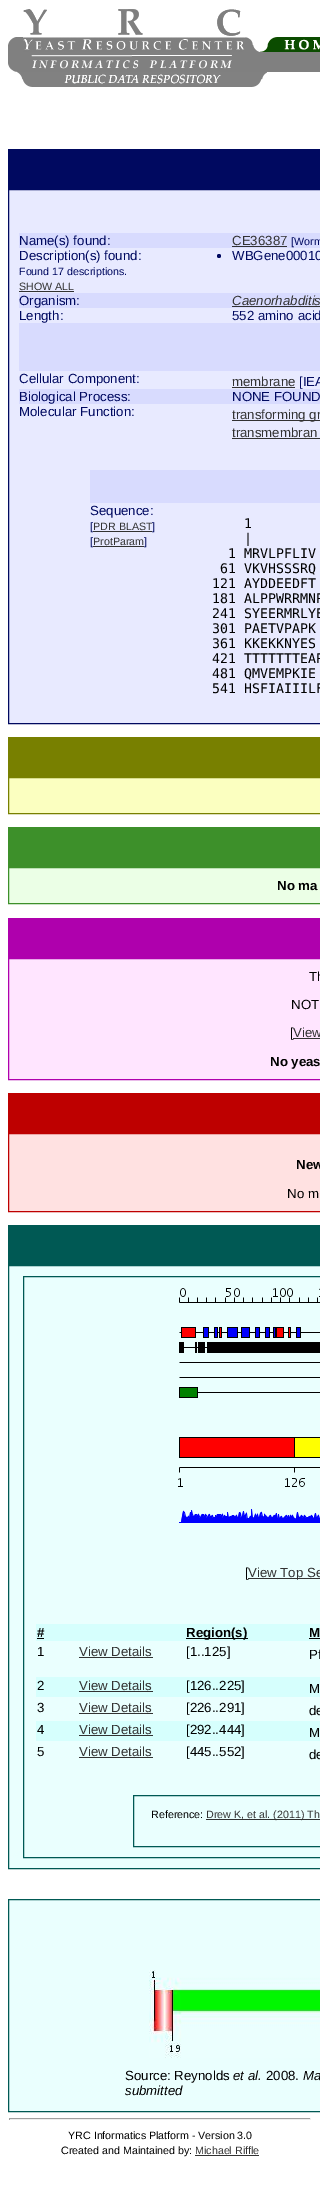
%!PS-Adobe-3.0
%%BoundingBox: 0 0 320 2208
%%LanguageLevel: 3
%%Pages: 1
%%EndComments
%%BeginProlog
/setink { dup -16 bitshift 255 div exch dup -8 bitshift 255 and 255 div exch 255 and 255 div setrgbcolor } def
/usefont { [ exch dup neg 0 0 3 -1 roll 0 0 ] selectfont } def
/disc { newpath 0 360 arc closepath } def
/drawimage { 5 dict begin { /h /w /y /x /name } { exch def } forall
  gsave x y translate w h scale
  w h 8 [w 0 0 h 0 0] name (r) file false 3 colorimage grestore end } def
%%EndProlog
%%BeginSetup
<< /PageSize [320 2208] >> setpagedevice
%%EndSetup
%%Page: 1 1
0 2208 translate 1 -1 scale
4 setmiterlimit
16#FFFFFF setink
0 0 320 2208 rectfill
(img1.raw) 8 37 15 15 drawimage
(img2.raw) 23 9 222 43 drawimage
(img3.raw) 245 37 15 15 drawimage
(img4.raw) 260 37 60 15 drawimage
(img5.raw) 8 52 15 20 drawimage
(img6.raw) 23 52 221 20 drawimage
16#808080 setink
244 52 76 20 rectfill
(img7.raw) 17 72 250 15 drawimage
16#000960 setink
8 149 312 40 rectfill
16#E8EAFF setink
8.5 189.5 moveto 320.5 189.5 lineto 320.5 723.5 lineto 8.5 723.5 lineto closepath gsave fill grestore
16#000960 setink
stroke
16#D8DBFE setink
19 233 301 15 rectfill
/LiberationSans-Regular 13.25 usefont
16#000960 setink
19 245 moveto (Name\(s\) found:) show
16#323232 setink
232 245 moveto (CE36387) show
232 246 55 1 rectfill
/LiberationSans-Regular 10.7 usefont
16#000960 setink
291 245 moveto ([Worm) show
/LiberationSans-Regular 13.25 usefont
19 260 moveto (Description\(s\) found:) show
/LiberationSans-Regular 10.7 usefont
19 275 moveto (Found 17 descriptions.) show
16#323232 setink
19 290 moveto (SHOW ALL) show
19 291 55 1 rectfill
16#000960 setink
219 256 2 disc fill
/LiberationSans-Regular 13.25 usefont
232 260 moveto (WBGene00010) show
16#D8DBFE setink
19 293 301 15 rectfill
16#000960 setink
19 305 moveto (Organism:) show
/LiberationSans-Italic 13.25 usefont
16#323232 setink
232 305 moveto (Caenorhabditis) show
232 306 88 1 rectfill
/LiberationSans-Regular 13.25 usefont
16#000960 setink
19 320 moveto (Length:) show
232 320 moveto (552 amino acid) show
16#D8DBFE setink
19 323 301 48 rectfill
16#000960 setink
19 383 moveto (Cellular Component:) show
16#323232 setink
232 386 moveto (membrane) show
232 387 63 1 rectfill
16#000960 setink
299 386 moveto ([IEA) show
16#D8DBFE setink
19 389 301 15 rectfill
16#000960 setink
[
    [(Biological Process:) 19 401]
    [(NONE FOUND) 232 401]
    [(Molecular Function:) 19 416]
] { aload pop moveto show } forall
16#323232 setink
232 420 88 1 rectfill
232 419 moveto (transforming gr) show
232 437 moveto (transmembran) show
232 438 88 1 rectfill
16#D8DBFE setink
90 470 230 33 rectfill
16#000960 setink
90 515 moveto (Sequence:) show
/LiberationSans-Regular 10.7 usefont
90 530 moveto ([) show
16#323232 setink
93 531 59 1 rectfill
93 530 moveto (PDR BLAST) show
16#000960 setink
152 530 moveto (]) show
90 545 moveto ([) show
16#323232 setink
93 546 51 1 rectfill
93 545 moveto (ProtParam) show
16#000960 setink
144 545 moveto (]) show
/DejaVuSansMono-Regular 13.25 usefont
16#000000 setink
[
    [(1) 244 528]
    [(|) 244 543]
    [(1 MRVLPFLIV) 228 558]
    [(61 VKVHSSSRQ) 220 573]
    [(121 AYDDEEDFT) 212 588]
    [(181 ALPPWRRMNP) 212 603]
    [(241 SYEERMRLYE) 212 618]
    [(301 PAETVPAPK) 212 633]
    [(361 KKEKKNYES) 212 648]
    [(421 TTTTTTTEAP) 212 663]
    [(481 QMVEMPKIE) 212 678]
    [(541 HSFIAIIILF) 212 693]
] { aload pop moveto show } forall
16#788000 setink
8 737 312 40 rectfill
16#FBFFC0 setink
8.5 777.5 moveto 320.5 777.5 lineto 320.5 813.5 lineto 8.5 813.5 lineto closepath gsave fill grestore
16#788000 setink
stroke
16#3D902A setink
8 827 312 40 rectfill
16#EBFFE6 setink
8.5 867.5 moveto 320.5 867.5 lineto 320.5 903.5 lineto 8.5 903.5 lineto closepath gsave fill grestore
16#3D902A setink
stroke
/LiberationSans-Bold 13.25 usefont
16#000000 setink
277 890 moveto (No ma) show
16#AF00AD setink
8 918 312 40 rectfill
16#FFE5FF setink
8.5 958.5 moveto 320.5 958.5 lineto 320.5 1079.5 lineto 8.5 1079.5 lineto closepath gsave fill grestore
16#AF00AD setink
stroke
/LiberationSans-Regular 13.25 usefont
16#000000 setink
[
    [(Th) 309 981]
    [(NOT) 291 1009]
    [([) 290 1037]
] { aload pop moveto show } forall
16#323232 setink
293 1037 moveto (View) show
293 1038 27 1 rectfill
/LiberationSans-Bold 13.25 usefont
16#000000 setink
270 1066 moveto (No yeas) show
16#BE0000 setink
8 1093 312 40 rectfill
16#FFE1E1 setink
8.5 1133.5 moveto 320.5 1133.5 lineto 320.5 1211.5 lineto 8.5 1211.5 lineto closepath gsave fill grestore
16#BE0000 setink
stroke
16#000000 setink
296 1169 moveto (New) show
/LiberationSans-Regular 13.25 usefont
287 1198 moveto (No mi) show
16#005954 setink
8 1225 312 40 rectfill
16#EAFFFE setink
8.5 1265.5 moveto 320.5 1265.5 lineto 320.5 1868.5 lineto 8.5 1868.5 lineto closepath gsave fill grestore
16#005954 setink
stroke
23.5 1276.5 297 581 rectstroke
(img8.raw) 178 1288 142 235 drawimage
16#000000 setink
245 1577 moveto ([) show
16#323232 setink
248 1578 72 1 rectfill
248 1577 moveto (View Top Se) show
16#D6FFFD setink
36 1624 284 17 rectfill
/LiberationSans-Bold 13.25 usefont
16#000000 setink
37 1637 moveto (#) show
37 1638 7 1 rectfill
186 1638 62 1 rectfill
186 1637 moveto (Region\(s\)) show
309 1637 moveto (M) show
309 1638 11 1 rectfill
/LiberationSans-Regular 13.25 usefont
37 1656 moveto (1) show
16#323232 setink
79 1656 moveto (View Details) show
79 1657 74 1 rectfill
16#000000 setink
186 1656 moveto ([1..125]) show
309 1659 moveto (Pf) show
16#D6FFFD setink
36 1677 284 20 rectfill
16#000000 setink
37 1690 moveto (2) show
16#323232 setink
79 1690 moveto (View Details) show
79 1691 74 1 rectfill
16#000000 setink
[
    [([126..225]) 186 1690]
    [(M) 309 1693]
    [(3) 37 1712]
] { aload pop moveto show } forall
16#323232 setink
79 1712 moveto (View Details) show
79 1713 74 1 rectfill
16#000000 setink
186 1712 moveto ([226..291]) show
309 1715 moveto (de) show
16#D6FFFD setink
36 1721 284 20 rectfill
16#000000 setink
37 1734 moveto (4) show
16#323232 setink
79 1734 moveto (View Details) show
79 1735 74 1 rectfill
16#000000 setink
[
    [([292..444]) 186 1734]
    [(M) 309 1737]
    [(5) 37 1756]
] { aload pop moveto show } forall
16#323232 setink
79 1756 moveto (View Details) show
79 1757 74 1 rectfill
16#000000 setink
186 1756 moveto ([445..552]) show
309 1759 moveto (de) show
16#005954 setink
133.5 1795.5 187 51 rectstroke
/LiberationSans-Regular 10.7 usefont
16#000000 setink
151 1818 moveto (Reference:) show
16#323232 setink
206 1819 114 1 rectfill
206 1818 moveto (Drew K, et al. \(2011\) Th) show
16#EAFFFE setink
8.5 1899.5 moveto 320.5 1899.5 lineto 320.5 2111.5 lineto 8.5 2111.5 lineto closepath gsave fill grestore
16#005954 setink
stroke
(img9.raw) 149 1970 171 88 drawimage
/LiberationSans-Regular 13.25 usefont
16#000000 setink
125 2080 moveto (Source: Reynolds) show
/LiberationSans-Italic 13.25 usefont
233 2080 moveto (et al.) show
/LiberationSans-Regular 13.25 usefont
266 2080 moveto (2008.) show
/LiberationSans-Italic 13.25 usefont
303 2080 moveto (Ma) show
125 2095 moveto (submitted) show
[
    [9 2118 302 1 16#9F9F9F]
    [310 2118 1 2 16#EEEEEE]
    [9 2119 302 1 16#EEEEEE]
    [9 2118 1 2 16#9F9F9F]
] { aload pop setink rectfill } forall
/LiberationSans-Regular 10.7 usefont
16#000000 setink
68 2139 moveto (YRC Informatics Platform - Version 3.0) show
61 2154 moveto (Created and Maintained by:) show
16#323232 setink
195 2154 moveto (Michael Riffle) show
195 2155 64 1 rectfill
showpage
%%EOF
